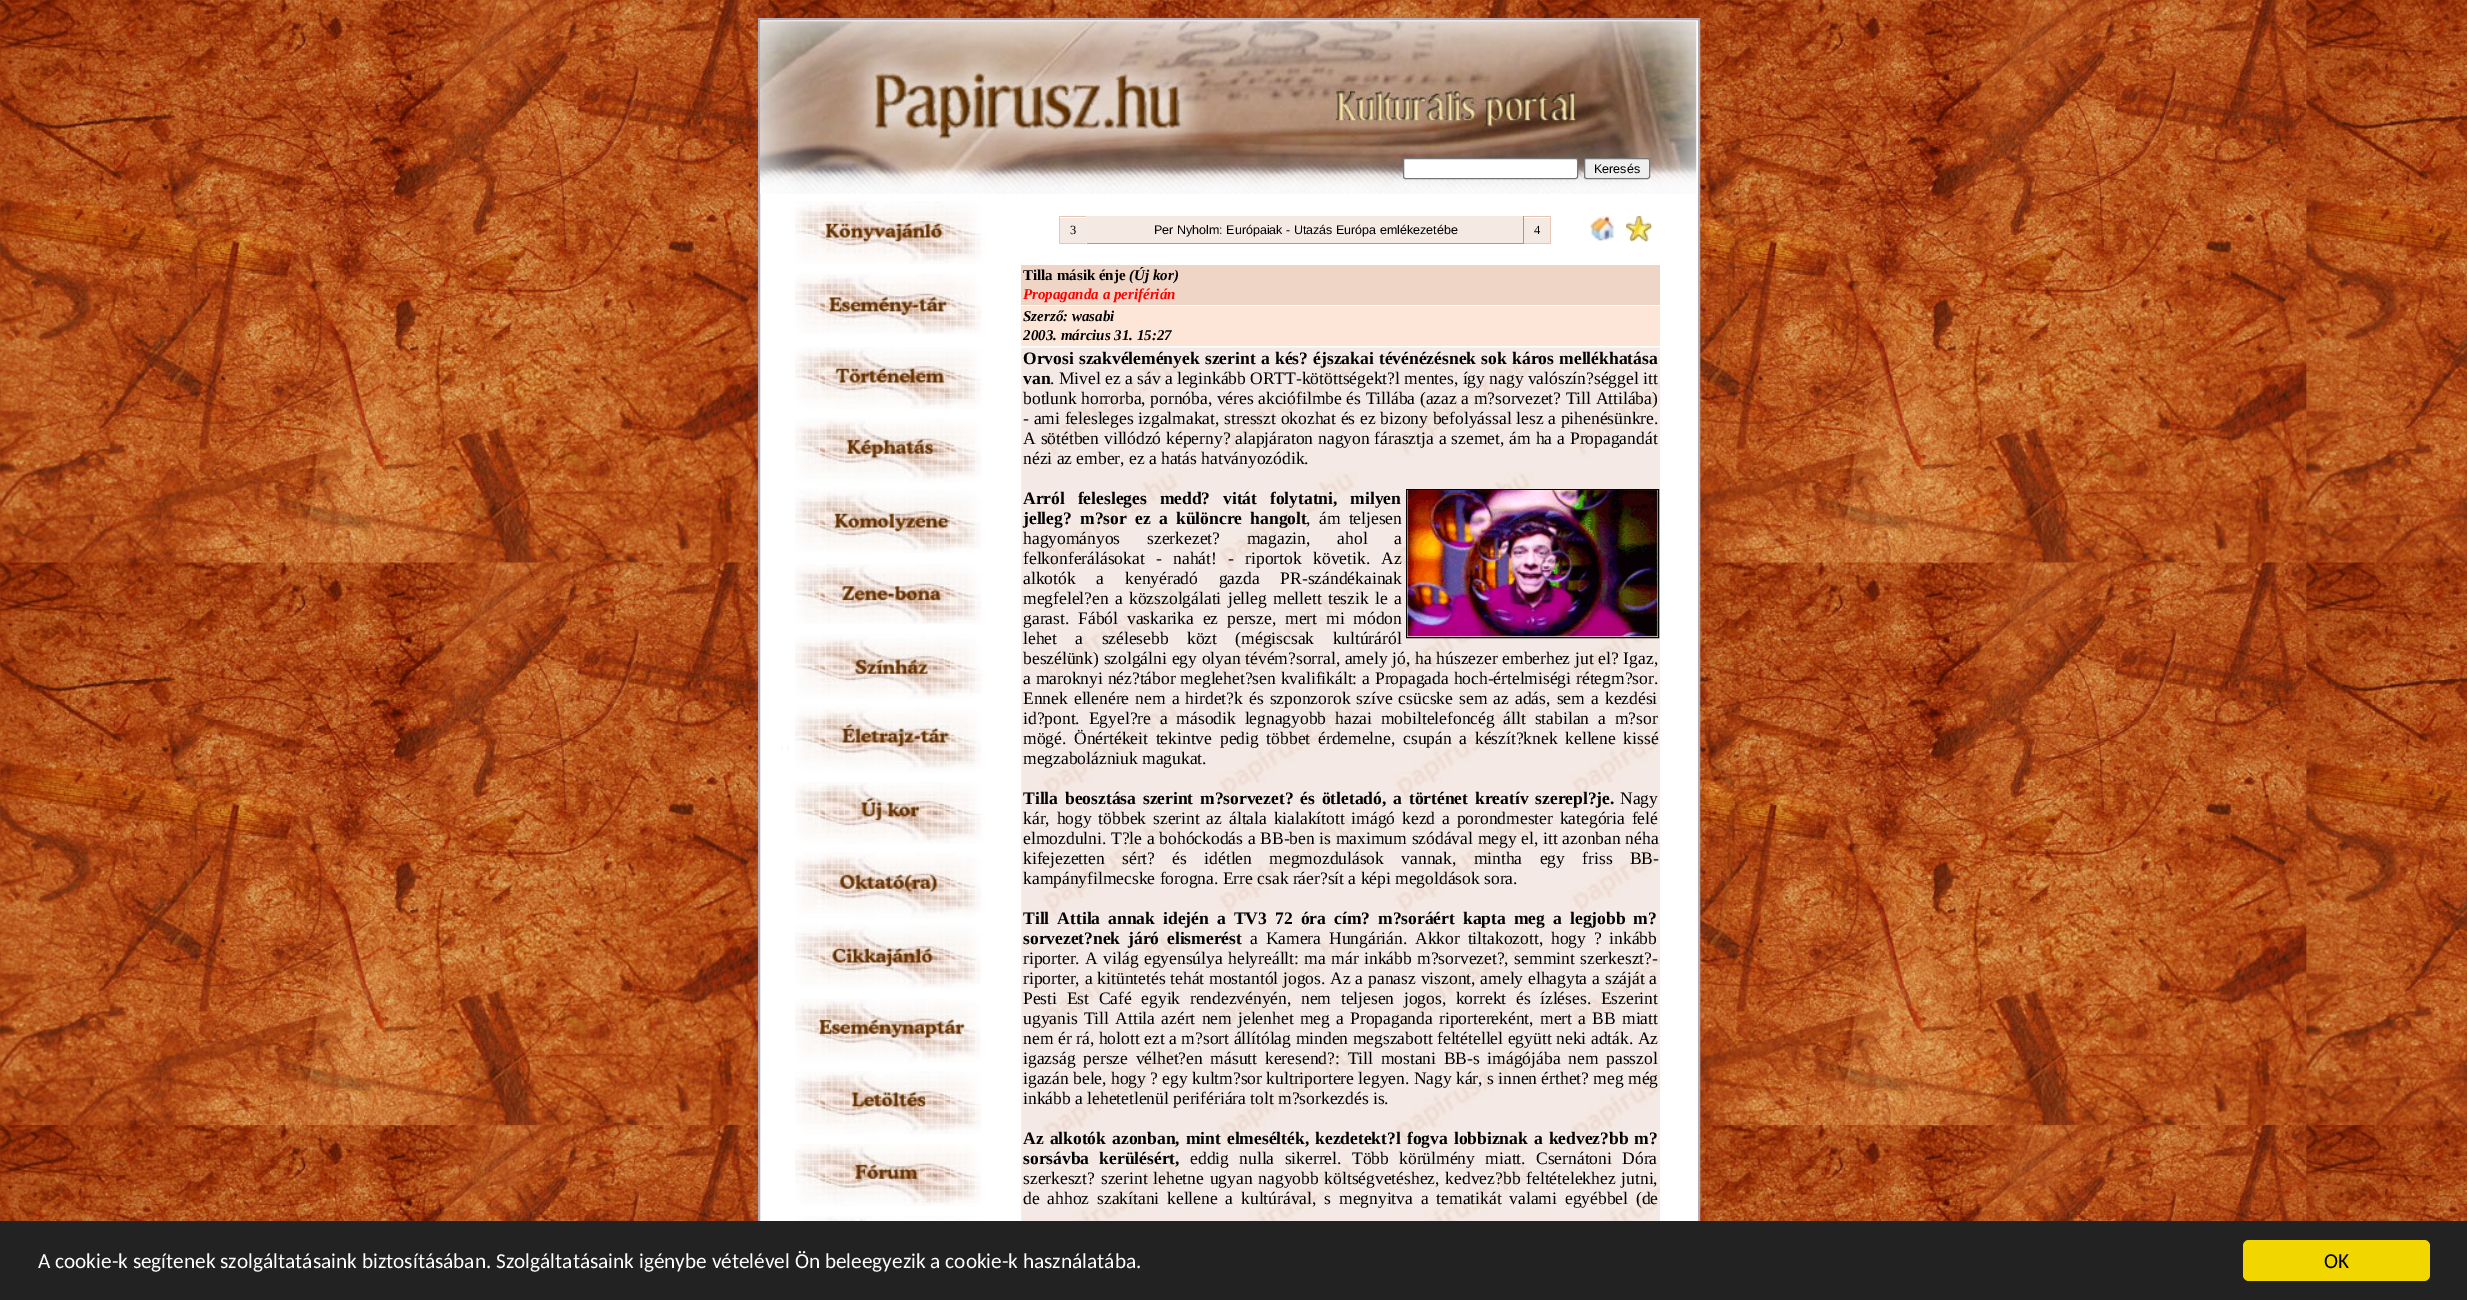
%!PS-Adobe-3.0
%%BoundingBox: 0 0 2467 1300
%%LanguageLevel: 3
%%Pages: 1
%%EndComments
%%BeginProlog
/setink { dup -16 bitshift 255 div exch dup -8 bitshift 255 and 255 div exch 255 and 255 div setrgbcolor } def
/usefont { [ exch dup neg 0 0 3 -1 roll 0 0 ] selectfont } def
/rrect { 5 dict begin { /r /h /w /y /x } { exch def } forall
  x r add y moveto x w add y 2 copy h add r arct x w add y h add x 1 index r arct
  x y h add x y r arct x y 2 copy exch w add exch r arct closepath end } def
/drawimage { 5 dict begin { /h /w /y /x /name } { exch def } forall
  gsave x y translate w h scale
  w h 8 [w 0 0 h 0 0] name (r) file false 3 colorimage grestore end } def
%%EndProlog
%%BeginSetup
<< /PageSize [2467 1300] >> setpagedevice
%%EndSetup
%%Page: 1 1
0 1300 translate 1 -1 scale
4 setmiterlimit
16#FFFFFF setink
0 0 2467 1300 rectfill
(img1.raw) 0 0 2467 1221 drawimage
16#B0ABB5 setink
758.5 18.5 941 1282 rectstroke
16#FFFFFF setink
760 20 938 1201 rectfill
16#B0ABB5 setink
759.5 19.5 939 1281 rectstroke
(img2.raw) 760 21 937 173 drawimage
16#FFFFFF setink
1403.5 158.5 174 20 2 rrect gsave fill grestore
16#767676 setink
stroke
16#EFEFEF setink
1584.5 158.5 65 20 2 rrect gsave fill grestore
16#767676 setink
stroke
/LiberationSans-Regular 12.5 usefont
16#000000 setink
1594 173 moveto (Keresés) show
(img3.raw) 781 746 8 5 drawimage
(img4.raw) 795 201 190 63 drawimage
(img5.raw) 795 274 188 60 drawimage
(img6.raw) 795 347 190 62 drawimage
(img7.raw) 795 418 187 65 drawimage
(img8.raw) 795 489 187 64 drawimage
(img9.raw) 795 564 187 60 drawimage
(img10.raw) 795 634 190 66 drawimage
(img11.raw) 795 704 187 69 drawimage
(img12.raw) 795 782 190 62 drawimage
(img13.raw) 795 852 187 67 drawimage
(img14.raw) 795 924 186 65 drawimage
(img15.raw) 795 999 186 64 drawimage
(img16.raw) 795 1071 187 63 drawimage
(img17.raw) 795 1144 187 62 drawimage
(img18.raw) 795 1216 190 5 drawimage
[
    [1060 218 26 25 16#F5E9E4]
    [1059 216 27 1 16#E7C6B5]
    [1059 243 27 1 16#E7C6B5]
    [1059 216 1 28 16#E7C6B5]
] { aload pop setink rectfill } forall
/LiberationSerif-Regular 12.5 usefont
16#000000 setink
1070 234 moveto (3) show
[
    [1087 216 436 27 16#F5E9E4]
    [1523 216 1 28 16#A39B98]
    [1086 243 438 1 16#A39B98]
    [1086 216 1 28 16#F5E9E4]
] { aload pop setink rectfill } forall
/LiberationSans-Regular 12.5 usefont
16#000000 setink
1154 234 moveto (Per Nyholm: Európaiak - Utazás Európa emlékezetébe) show
[
    [1524 218 26 25 16#F5E9E4]
    [1524 216 27 1 16#E7C6B5]
    [1550 216 1 28 16#E7C6B5]
    [1524 243 27 1 16#E7C6B5]
] { aload pop setink rectfill } forall
/LiberationSerif-Regular 12.5 usefont
16#000000 setink
1534 234 moveto (4) show
(img19.raw) 1590 216 25 26 drawimage
(img20.raw) 1626 216 26 26 drawimage
16#EFD5C6 setink
1021 265 639 40 rectfill
/LiberationSerif-Bold 15 usefont
16#000000 setink
1023 280 moveto (Tilla másik énje) show
/LiberationSerif-BoldItalic 15 usefont
1129 280 moveto (\(Új kor\)) show
16#FF0000 setink
1023 299 moveto (Propaganda a periférián) show
16#FDE5D8 setink
1021 306 639 40 rectfill
16#000000 setink
1023 321 moveto (Szerző: wasabi) show
1023 340 moveto (2003. március 31. 15:27) show
(img21.raw) 1021 347 639 874 drawimage
/LiberationSerif-Bold 17.5 usefont
1023 364 moveto 1 0 32 (Orvosi szakvélemények szerint a kés? éjszakai tévénézésnek sok káros mellékhatása) widthshow
1023 384 moveto (van) show
/LiberationSerif-Regular 17.5 usefont
1050 384 moveto (. Mivel ez a sáv a leginkább ORTT-kötöttségekt?l mentes, így nagy valószín?séggel itt) show
1023 404 moveto 0.25 0 32 (botlunk horrorba, pornóba, véres akciófilmbe és Tillába \(azaz a m?sorvezet? Till Attilába\)) widthshow
1023 424 moveto 0.4 0 32 (- ami felesleges izgalmakat, stresszt okozhat és ez bizony befolyással lesz a pihenésünkre.) widthshow
1023 444 moveto 0.6 0 32 (A sötétben villódzó képerny? alapjáraton nagyon fárasztja a szemet, ám ha a Propagandát) widthshow
1023 464 moveto (nézi az ember, ez a hatás hatványozódik.) show
/LiberationSerif-Bold 17.5 usefont
1023 504 moveto 8.5 0 32 (Arról felesleges medd? vitát folytatni, milyen) widthshow
1406.5 489.5 252 148 rectstroke
(img22.raw) 1407 490 251 147 drawimage
1023 524 moveto 4 0 32 (jelleg? m?sor ez a különcre hangolt) widthshow
/LiberationSerif-Regular 17.5 usefont
1306 524 moveto 4 0 32 (, ám teljesen) widthshow
1023 544 moveto 22.5 0 32 (hagyományos szerkezet? magazin, ahol a) widthshow
1023 564 moveto 7 0 32 (felkonferálásokat - nahát! - riportok követik. Az) widthshow
1023 584 moveto 16.5 0 32 (alkotók a kenyéradó gazda PR-szándékainak) widthshow
1023 604 moveto 2 0 32 (megfelel?en a közszolgálati jelleg mellett teszik le a) widthshow
1023 624 moveto 4.5 0 32 (garast. Fából vaskarika ez persze, mert mi módon) widthshow
1023 644 moveto 14 0 32 (lehet a szélesebb közt \(mégiscsak kultúráról) widthshow
1023 664 moveto 0.4 0 32 (beszélünk\) szolgálni egy olyan tévém?sorral, amely jó, ha húszezer emberhez jut el? Igaz,) widthshow
1023 684 moveto 0.5 0 32 (a maroknyi néz?tábor meglehet?sen kvalifikált: a Propagada hoch-értelmiségi rétegm?sor.) widthshow
1023 704 moveto 1.75 0 32 (Ennek ellenére nem a hirdet?k és szponzorok szíve csücske sem az adás, sem a kezdési) widthshow
1023 724 moveto 4.5 0 32 (id?pont. Egyel?re a második legnagyobb hazai mobiltelefoncég állt stabilan a m?sor) widthshow
1023 744 moveto 3.4 0 32 (mögé. Önértékeit tekintve pedig többet érdemelne, csupán a készít?knek kellene kissé) widthshow
1023 764 moveto (megzabolázniuk magukat.) show
/LiberationSerif-Bold 17.5 usefont
1023 804 moveto 2.5 0 32 (Tilla beosztása szerint m?sorvezet? és ötletadó, a történet kreatív szerepl?je.) widthshow
/LiberationSerif-Regular 17.5 usefont
1620 804 moveto (Nagy) show
1023 824 moveto 2.5 0 32 (kár, hogy többek szerint az általa kialakított imágó kezd a porondmester kategória felé) widthshow
1023 844 moveto 0.4 0 32 (elmozdulni. T?le a bohóckodás a BB-ben is maximum szódával megy el, itt azonban néha) widthshow
1023 864 moveto 13 0 32 (kifejezetten sért? és idétlen megmozdulások vannak, mintha egy friss BB-) widthshow
1023 884 moveto (kampányfilmecske forogna. Erre csak ráer?sít a képi megoldások sora.) show
/LiberationSerif-Bold 17.5 usefont
1023 924 moveto 3.75 0 32 (Till Attila annak idején a TV3 72 óra cím? m?soráért kapta meg a legjobb m?) widthshow
1023 944 moveto 3.5 0 32 (sorvezet?nek járó elismerést) widthshow
/LiberationSerif-Regular 17.5 usefont
1250 944 moveto 3.5 0 32 (a Kamera Hungárián. Akkor tiltakozott, hogy ? inkább) widthshow
1023 964 moveto 1.1 0 32 (riporter. A világ egyensúlya helyreállt: ma már inkább m?sorvezet?, semmint szerkeszt?-) widthshow
1023 984 moveto 0.5 0 32 (riporter, a kitüntetés tehát mostantól jogos. Az a panasz viszont, amely elhagyta a száját a) widthshow
1023 1004 moveto 5.25 0 32 (Pesti Est Café egyik rendezvényén, nem teljesen jogos, korrekt és ízléses. Eszerint) widthshow
1023 1024 moveto 1.9 0 32 (ugyanis Till Attila azért nem jelenhet meg a Propaganda riportereként, mert a BB miatt) widthshow
1023 1044 moveto 0.25 0 32 (nem ér rá, holott ezt a m?sort állítólag minden megszabott feltétellel együtt neki adták. Az) widthshow
1023 1064 moveto 3.4 0 32 (igazság persze vélhet?en másutt keresend?: Till mostani BB-s imágójába nem passzol) widthshow
1023 1084 moveto (igazán bele, hogy ? egy kultm?sor kultriportere legyen. Nagy kár, s innen érthet? meg még) show
1023 1104 moveto (inkább a lehetetlenül perifériára tolt m?sorkezdés is.) show
/LiberationSerif-Bold 17.5 usefont
1023 1144 moveto 1.75 0 32 (Az alkotók azonban, mint elmesélték, kezdetekt?l fogva lobbiznak a kedvez?bb m?) widthshow
1023 1164 moveto 6 0 32 (sorsávba kerülésért,) widthshow
/LiberationSerif-Regular 17.5 usefont
1190 1164 moveto 6 0 32 (eddig nulla sikerrel. Több körülmény miatt. Csernátoni Dóra) widthshow
1023 1184 moveto 1.5 0 32 (szerkeszt? szerint lehetne ugyan nagyobb költségvetéshez, kedvez?bb feltételekhez jutni,) widthshow
1023 1204 moveto 3.5 0 32 (de ahhoz szakítani kellene a kultúrával, s megnyitva a tematikát valami egyébbel \(de) widthshow
16#222222 setink
0 1221 2467 79 rectfill
/Carlito-Regular 21.25 usefont
16#FFFFFF setink
38 1268 moveto (A cookie-k segítenek szolgáltatásaink biztosításában. Szolgáltatásaink igénybe vételével Ön beleegyezik a cookie-k használatába.) show
16#F1D600 setink
2243 1240 187 41 6 rrect fill
16#000000 setink
2324 1268 moveto (OK) show
showpage
%%EOF
